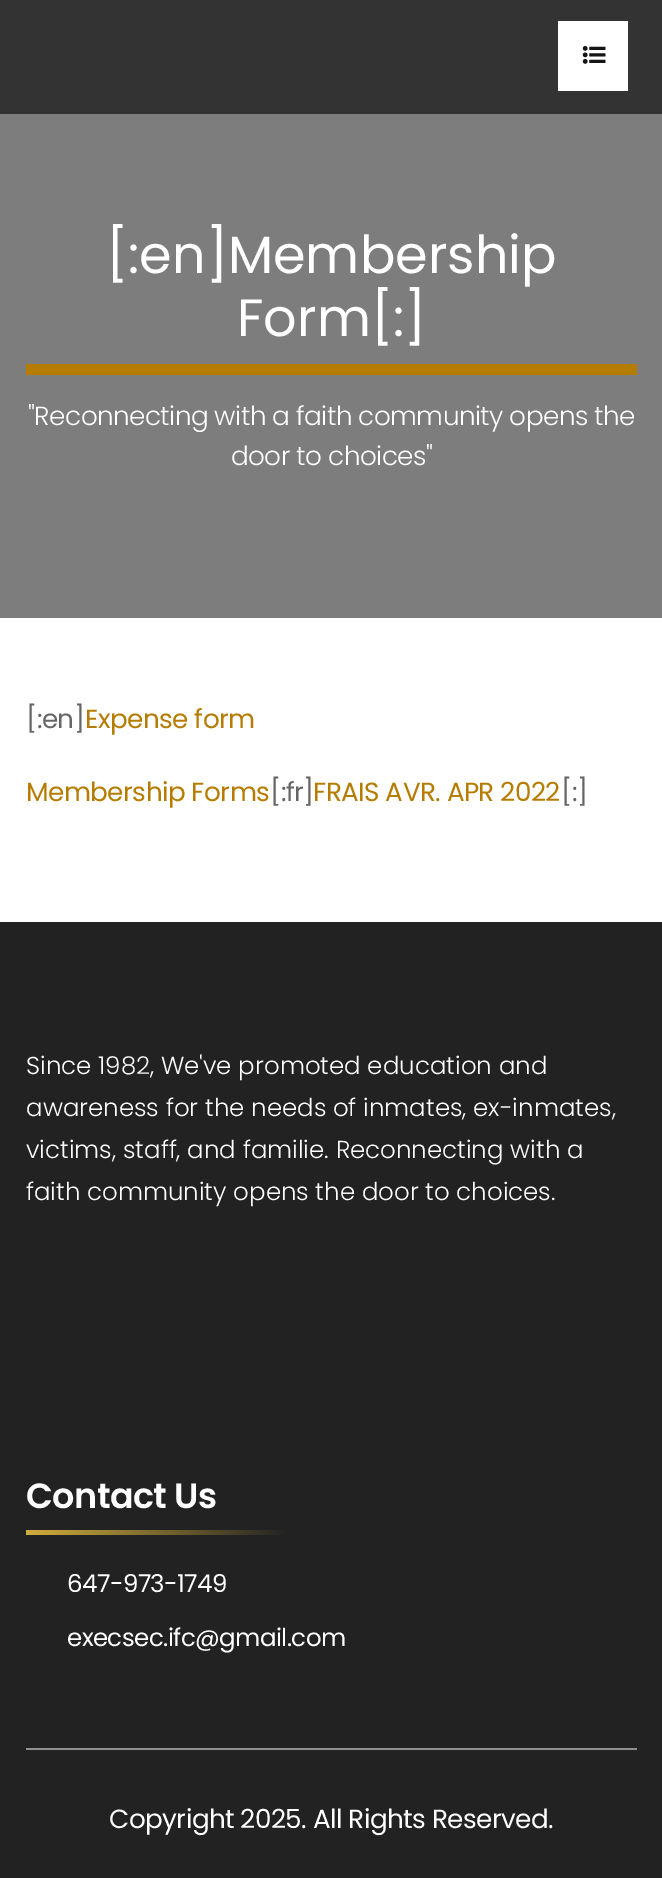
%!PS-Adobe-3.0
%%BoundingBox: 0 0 662 1878
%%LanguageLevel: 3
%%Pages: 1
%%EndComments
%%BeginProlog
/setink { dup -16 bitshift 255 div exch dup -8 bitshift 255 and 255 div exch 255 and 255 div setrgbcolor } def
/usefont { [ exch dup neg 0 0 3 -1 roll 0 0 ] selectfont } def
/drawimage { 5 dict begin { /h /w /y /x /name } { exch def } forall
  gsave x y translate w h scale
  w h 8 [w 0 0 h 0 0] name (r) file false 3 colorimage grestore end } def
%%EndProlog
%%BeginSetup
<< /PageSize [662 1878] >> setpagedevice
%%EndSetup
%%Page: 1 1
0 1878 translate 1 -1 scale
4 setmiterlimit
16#FFFFFF setink
0 0 662 1878 rectfill
16#333333 setink
0 0 662 114 rectfill
16#FFFFFF setink
558 21 70 70 rectfill
(img1.raw) 582 46 24 18 drawimage
16#7D7D7D setink
0 114 662 504 rectfill
/Poppins-Regular 52.5 usefont
16#FFFFFF setink
106 273 moveto ([:en]Membership) show
237 336 moveto (Form[:]) show
16#B57C00 setink
26 364 611 11 rectfill
/Poppins-Light 26.25 usefont
16#FFFFFF setink
28 425 moveto -0.55 0 ("Reconnecting with a faith community opens the) ashow
231 465 moveto -0.55 0 (door to choices") ashow
/Poppins-Regular 26.25 usefont
16#666666 setink
26 728 moveto -0.55 0 ([:en]) ashow
16#B57C00 setink
85 728 moveto -0.55 0 (Expense form) ashow
26 801 moveto -0.55 0 (Membership Forms) ashow
16#666666 setink
270 801 moveto -0.55 0 ([:fr]) ashow
16#B57C00 setink
313 801 moveto -0.55 0 (FRAIS AVR. APR 2022) ashow
16#666666 setink
561 801 moveto -0.55 0 ([:]) ashow
16#222222 setink
0 922 662 956 rectfill
/Poppins-Light 24.5 usefont
16#FFFFFF setink
[
    [(Since 1982, We've promoted education and) 26 1074]
    [(awareness for the needs of inmates, ex-inmates,) 26 1116]
    [(victims, staff, and familie. Reconnecting with a) 26 1158]
    [(faith community opens the door to choices.) 26 1200]
] { aload pop moveto show } forall
/Poppins-SemiBold 35 usefont
26 1508 moveto -0.55 0 (Contact Us) ashow
gsave 26 1530 moveto 289 1530 lineto 289 1535 lineto 26 1535 lineto closepath clip newpath
<< /ShadingType 2 /ColorSpace /DeviceRGB /Coords [26 1532 289 1532] /Extend [true true] /Function << /FunctionType 2 /Domain [0 1] /C0 [0.82 0.678 0.235] /C1 [0.133 0.133 0.133] /N 1 >> >> shfill grestore
/Poppins-Regular 24.5 usefont
67 1592 moveto -0.55 0 (647-973-1749) ashow
67 1646 moveto -0.55 0 (execsec.ifc@gmail.com) ashow
16#919191 setink
26 1748 611 2 rectfill
/Poppins-Regular 26.25 usefont
16#FFFFFF setink
109 1828 moveto -0.55 0 (Copyright 2025. All Rights Reserved.) ashow
showpage
%%EOF
